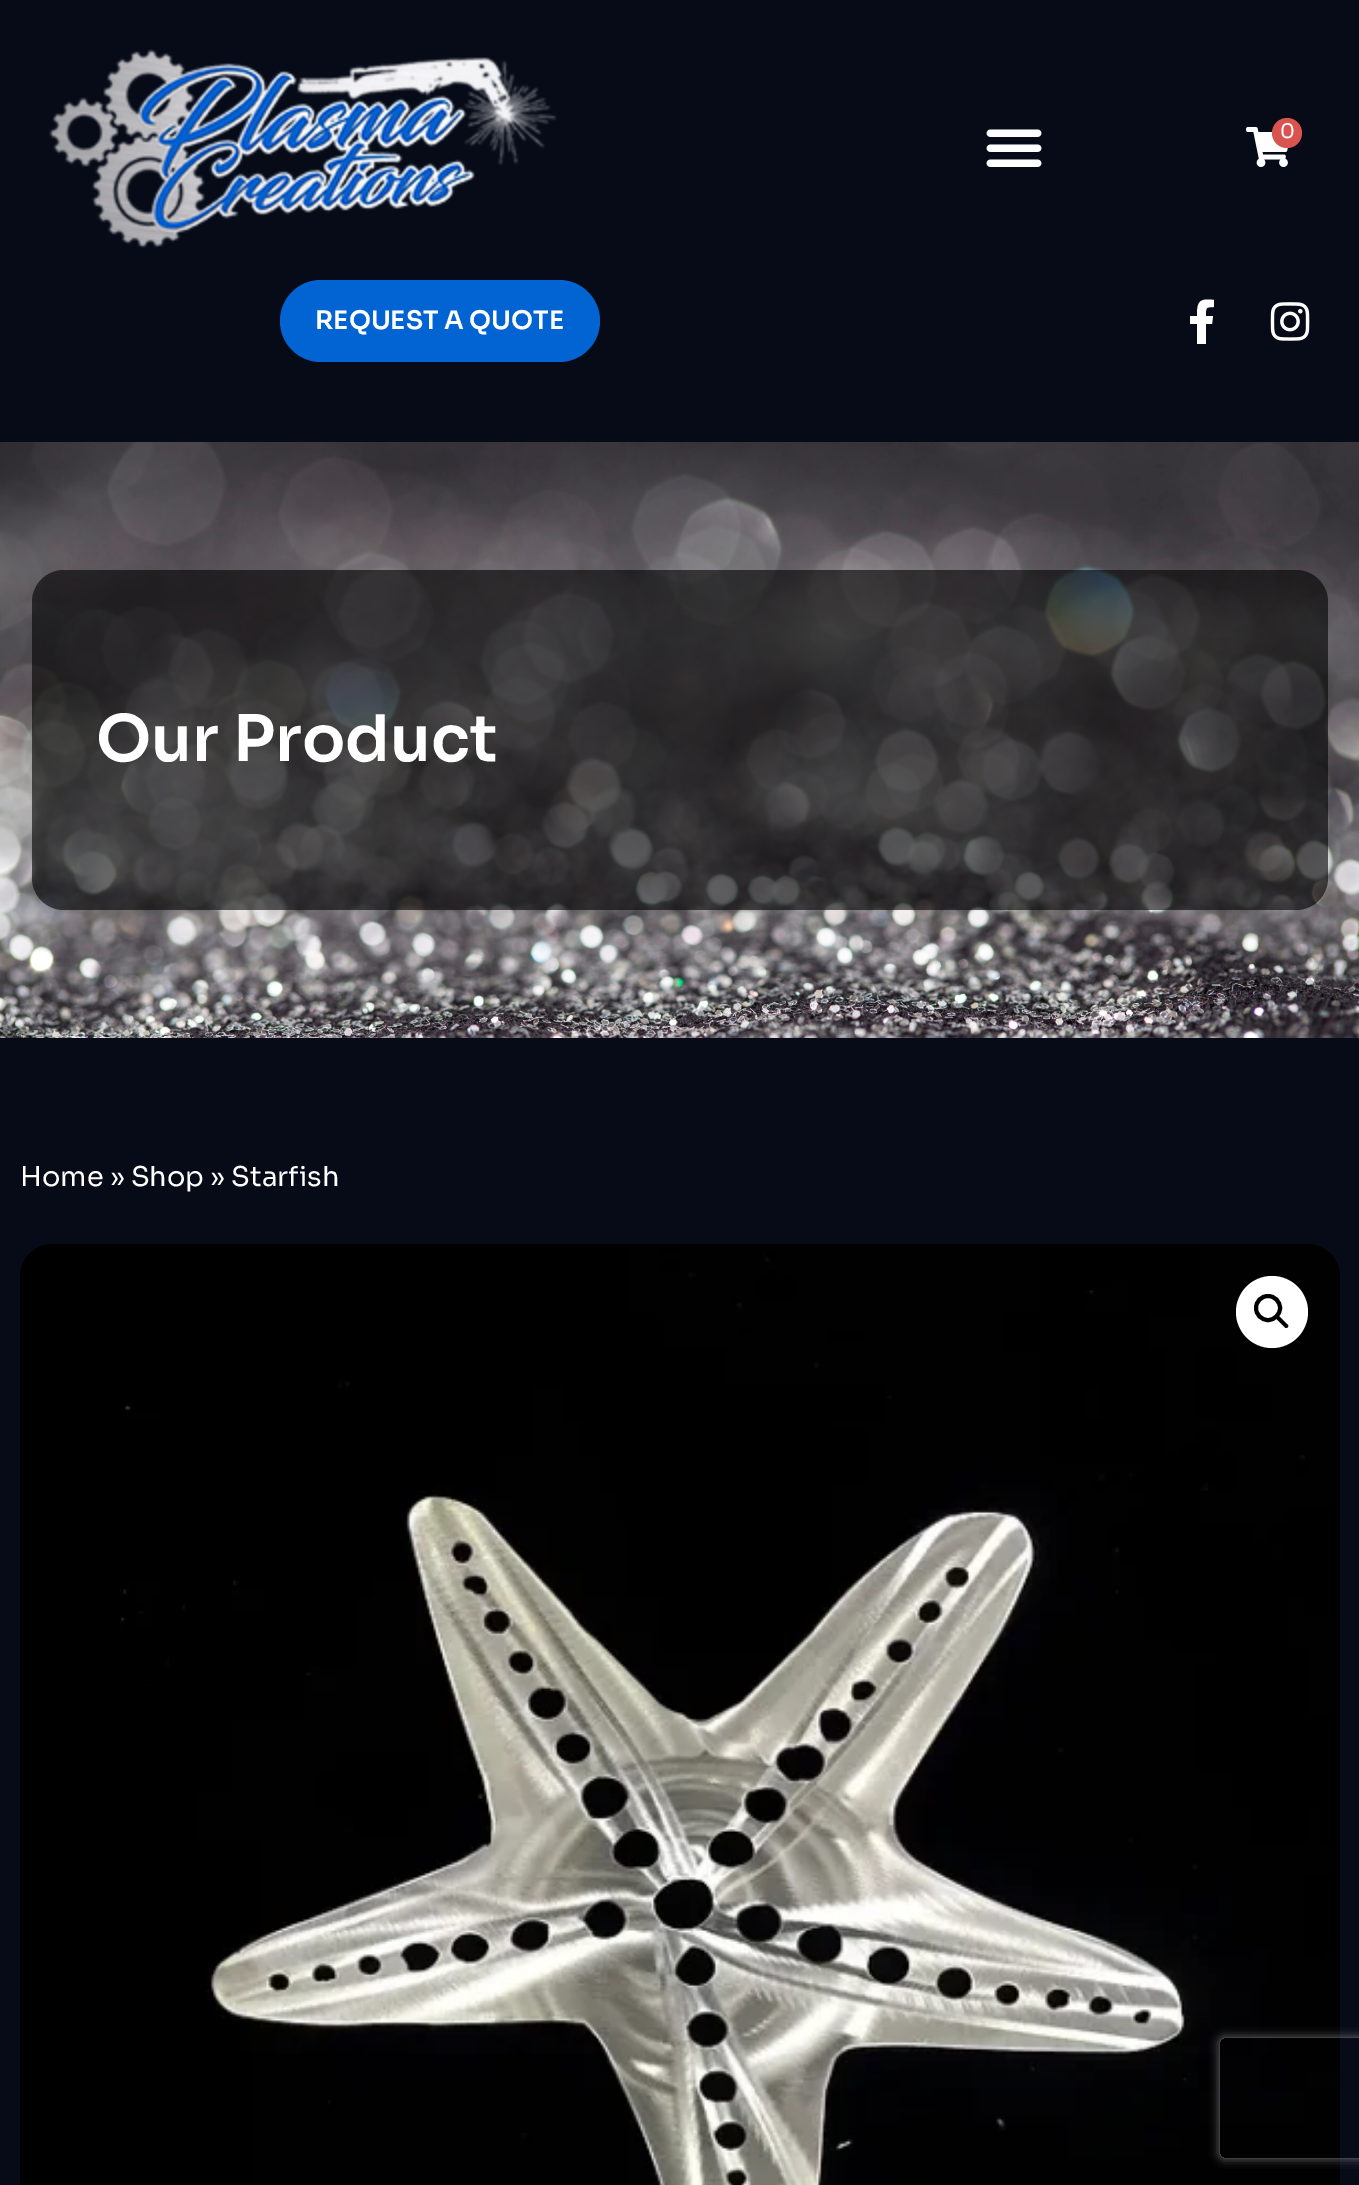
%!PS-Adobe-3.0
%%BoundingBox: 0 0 1359 2185
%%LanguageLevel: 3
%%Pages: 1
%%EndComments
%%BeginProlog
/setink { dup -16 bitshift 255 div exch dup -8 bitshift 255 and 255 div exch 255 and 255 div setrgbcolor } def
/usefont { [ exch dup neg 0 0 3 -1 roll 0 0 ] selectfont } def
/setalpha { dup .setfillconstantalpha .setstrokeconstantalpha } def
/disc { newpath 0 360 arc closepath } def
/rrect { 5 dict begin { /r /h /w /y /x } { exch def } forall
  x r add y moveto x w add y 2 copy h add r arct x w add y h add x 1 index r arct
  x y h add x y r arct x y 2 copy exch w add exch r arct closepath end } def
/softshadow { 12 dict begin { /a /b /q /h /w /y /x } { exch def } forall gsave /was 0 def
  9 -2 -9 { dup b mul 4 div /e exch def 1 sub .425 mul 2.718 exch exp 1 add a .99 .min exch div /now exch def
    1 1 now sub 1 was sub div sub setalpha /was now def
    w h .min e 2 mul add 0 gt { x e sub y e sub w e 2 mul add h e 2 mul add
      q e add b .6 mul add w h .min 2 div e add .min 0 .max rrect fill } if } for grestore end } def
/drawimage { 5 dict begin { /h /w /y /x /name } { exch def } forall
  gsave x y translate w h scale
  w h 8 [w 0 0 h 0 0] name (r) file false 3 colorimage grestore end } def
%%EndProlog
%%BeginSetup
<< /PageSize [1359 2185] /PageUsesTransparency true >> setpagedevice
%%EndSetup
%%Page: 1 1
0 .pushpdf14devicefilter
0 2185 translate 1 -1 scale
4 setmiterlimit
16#060B17 setink
0 0 1359 2185 rectfill
(img1.raw) 49 49 508 199 drawimage
(img2.raw) 986 129 56 38 drawimage
(img3.raw) 1246 127 42 40 drawimage
16#D9534F setink
1287 133 15 disc fill
/Sora-Regular 20 usefont
16#FFFFFF setink
1280 138 moveto (0) show
16#0264D2 setink
280 280 320 82 41 rrect fill
/Sora-SemiBold 25.5 usefont
16#FFFFFF setink
315 329 moveto (REQUEST A QUOTE) show
1212 324 moveto 1206 324 lineto 1206 344 lineto 1197 344 lineto 1197 324 lineto 1190 324 lineto 1190 316 lineto 1197 316 lineto 1197 302 1199 298 1214 300 curveto 1214 307 lineto 1205 307 1206 308 1206 316 curveto 1213 316 lineto closepath fill
(img4.raw) 1270 302 40 39 drawimage
(img5.raw) 0 442 1359 596 drawimage
0.6 setalpha
16#000000 setink
32 570 1296 340 32 rrect fill
/Sora-SemiBold 64 usefont
1 setalpha
16#FFFFFF setink
96 761 moveto (Our Product) show
/Sora-Regular 27.25 usefont
20 1186 moveto (Home » Shop » Starfish) show
(img6.raw) 20 1244 1320 941 drawimage
1272 1312 36 disc fill
16#000000 setink
4 setlinewidth
1268 1308 12 disc stroke
1276.5 1316 moveto 1277 1315 1278.5 1315 1279 1316 curveto 1287.5 1324.5 lineto 1288.5 1325 1288.5 1326.5 1287.5 1327.5 curveto 1287 1328 1285.5 1328 1285 1327.5 curveto 1276.5 1319 lineto 1275.5 1318 1275.5 1316.5 1276.5 1316 curveto closepath fill
gsave
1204 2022 moveto 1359 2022 lineto 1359 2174 lineto 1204 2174 lineto closepath 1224 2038 moveto 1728 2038 lineto 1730 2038 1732 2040 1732 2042 curveto 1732 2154 lineto 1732 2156 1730 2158 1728 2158 curveto 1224 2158 lineto 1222 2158 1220 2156 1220 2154 curveto 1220 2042 lineto 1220 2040 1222 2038 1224 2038 curveto closepath eoclip newpath
16#808080 setink
1220 2038 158 120 4 5 1 softshadow
grestore
.poppdf14devicefilter showpage
%%EOF
